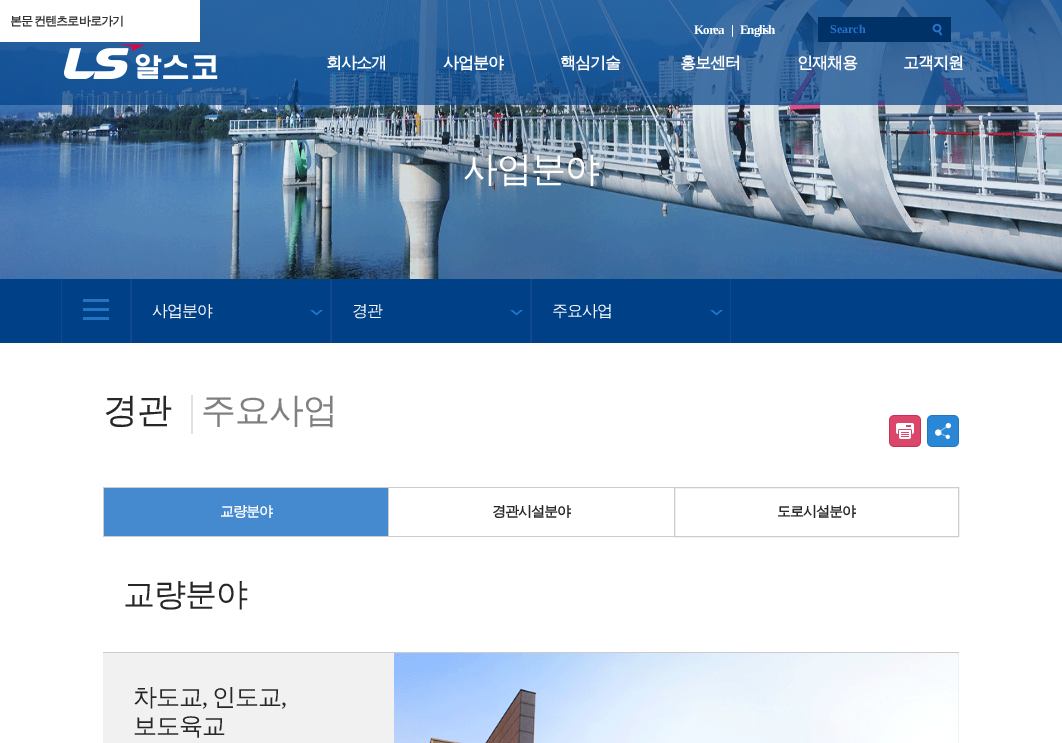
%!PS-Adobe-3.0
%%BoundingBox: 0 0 1062 743
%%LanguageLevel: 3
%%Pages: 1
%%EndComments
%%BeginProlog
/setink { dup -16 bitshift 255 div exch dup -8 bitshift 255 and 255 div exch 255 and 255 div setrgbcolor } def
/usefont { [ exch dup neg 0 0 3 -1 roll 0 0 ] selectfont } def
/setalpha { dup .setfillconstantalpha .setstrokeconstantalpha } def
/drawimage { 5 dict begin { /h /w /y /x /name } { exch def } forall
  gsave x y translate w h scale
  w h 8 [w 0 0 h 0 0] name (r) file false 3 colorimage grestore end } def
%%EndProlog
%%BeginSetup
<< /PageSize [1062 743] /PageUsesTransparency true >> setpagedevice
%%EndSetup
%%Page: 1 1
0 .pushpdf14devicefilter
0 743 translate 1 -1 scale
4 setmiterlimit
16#FFFFFF setink
0 0 1062 743 rectfill
(img3.raw) 0 0 1062 279 drawimage
0.7 setalpha
16#004087 setink
0 0 1062 105 rectfill
1 setalpha
16#FFFFFF setink
0 0 200 42 rectfill
/WenQuanYiZenHei-Bold 12 usefont
16#333333 setink
10 25 moveto -1 0 32 -1 0 (본문 컨텐츠로 바로가기) awidthshow
/LiberationSerif-Bold 13 usefont
16#FFFFFF setink
694 34 moveto -1 0 (Korea) ashow
731 34 moveto -1 0 (|   English) ashow
16#003267 setink
818 17 133 25 rectfill
/LiberationSerif-Bold 12 usefont
16#2474CB setink
830 33 moveto (Search) show
(img1.raw) 932 23 10 13 drawimage
(img2.raw) 64 44 154 35 drawimage
/WenQuanYiZenHei-Bold 16 usefont
16#FFFFFF setink
326 68 moveto -1 0 (회사소개) ashow
443 68 moveto -1 0 (사업분야) ashow
560 68 moveto -1 0 (핵심기술) ashow
680 68 moveto -1 0 (홍보센터) ashow
797 68 moveto -1 0 (인재채용) ashow
903 68 moveto -1 0 (고객지원) ashow
/WenQuanYiZenHei-Medium 35 usefont
463 181 moveto -1 0 (사업분야) ashow
[
    [0 279 1062 64 16#004087]
    [130 279 2 64 16#13488C]
    [61 279 1 64 16#13488C]
] { aload pop setink rectfill } forall
(img4.raw) 83 299 26 21 drawimage
330 279 2 64 rectfill
/WenQuanYiZenHei-Medium 16 usefont
16#FFFFFF setink
152 316 moveto -1 0 (사업분야) ashow
(img5.raw) 310 310 13 6 drawimage
16#13488C setink
530 279 2 64 rectfill
16#FFFFFF setink
352 316 moveto -1 0 (경관) ashow
(img5.raw) 510 310 13 6 drawimage
16#13488C setink
730 279 1 64 rectfill
16#FFFFFF setink
552 316 moveto -1 0 (주요사업) ashow
(img5.raw) 710 310 13 6 drawimage
/WenQuanYiZenHei-Medium 35 usefont
16#272727 setink
103 422 moveto -1 0 (경관) ashow
16#E1E1E1 setink
191 395 2 39 rectfill
16#808080 setink
201 422 moveto -1 0 (주요사업) ashow
(img6.raw) 889 415 32 32 drawimage
(img7.raw) 927 415 32 32 drawimage
[
    [104 488 284 48 16#4589CF]
    [103 487 571 1 16#CCCCCC]
    [103 536 571 1 16#CCCCCC]
    [103 487 1 50 16#CCCCCC]
] { aload pop setink rectfill } forall
/WenQuanYiZenHei-Bold 14 usefont
16#FFFFFF setink
220 516 moveto -1 0 (교량분야) ashow
16#CCCCCC setink
388 487 1 50 rectfill
16#272727 setink
492 516 moveto -1 0 (경관시설분야) ashow
16#CCCCCC setink
674.5 487.5 284 49 rectstroke
16#272727 setink
777 516 moveto -1 0 (도로시설분야) ashow
/WenQuanYiZenHei-Medium 32 usefont
123 605 moveto -1 0 (교량분야) ashow
16#F0F1F0 setink
103 653 856 90 rectfill
16#CCCCCC setink
103 652 856 1 rectfill
/WenQuanYiZenHei-Medium 24 usefont
16#272727 setink
133 705 moveto -1 0 (차도교) ashow
/LiberationSerif-Regular 24 usefont
202 705 moveto -1 0 (,) ashow
/WenQuanYiZenHei-Medium 24 usefont
212 705 moveto -1 0 (인도교) ashow
/LiberationSerif-Regular 24 usefont
281 705 moveto -1 0 (,) ashow
/WenQuanYiZenHei-Medium 24 usefont
133 734 moveto -1 0 (보도육교) ashow
(img8.raw) 394 653 564 90 drawimage
.poppdf14devicefilter showpage
%%EOF
